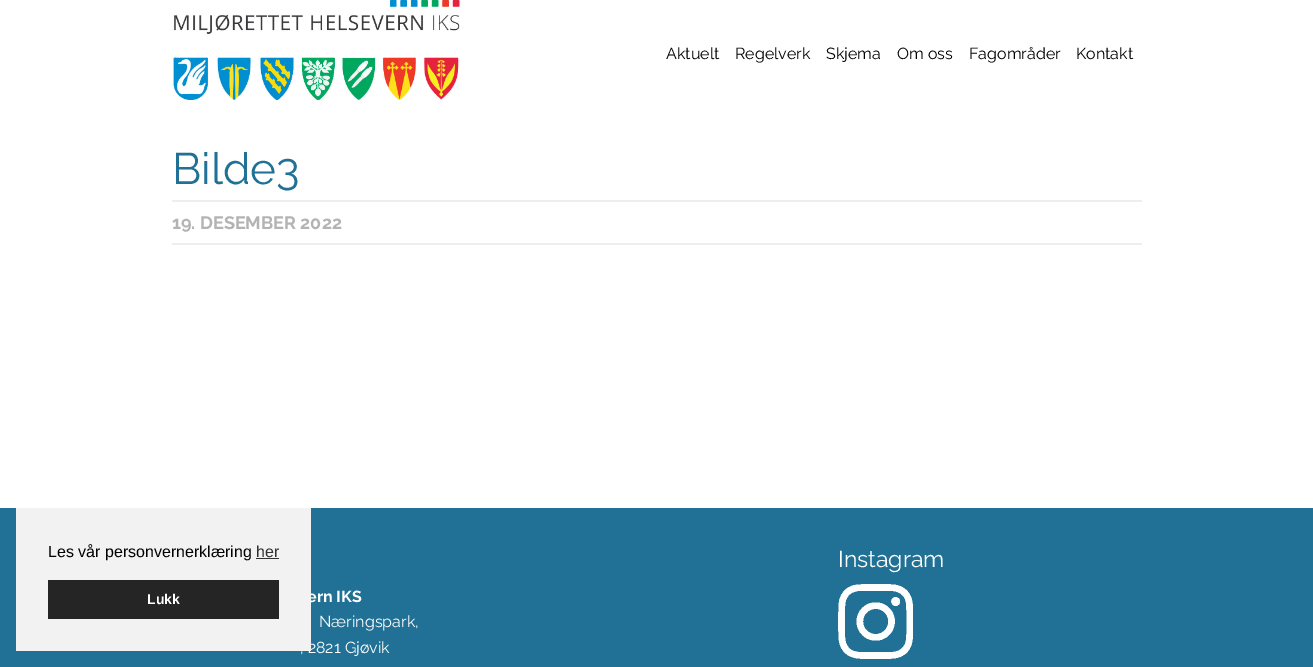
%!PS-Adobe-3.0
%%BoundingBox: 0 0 1313 667
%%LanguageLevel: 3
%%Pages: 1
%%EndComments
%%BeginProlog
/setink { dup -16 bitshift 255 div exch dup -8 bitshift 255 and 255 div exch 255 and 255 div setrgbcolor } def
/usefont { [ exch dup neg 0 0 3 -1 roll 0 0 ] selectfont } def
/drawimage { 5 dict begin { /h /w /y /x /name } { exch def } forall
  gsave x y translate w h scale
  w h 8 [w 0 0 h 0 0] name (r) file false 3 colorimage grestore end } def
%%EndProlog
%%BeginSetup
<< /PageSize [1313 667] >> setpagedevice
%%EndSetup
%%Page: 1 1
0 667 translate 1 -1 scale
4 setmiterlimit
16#FFFFFF setink
0 0 1313 667 rectfill
16#207195 setink
0 508 1313 159 rectfill
/Raleway-Bold 16 usefont
16#FFFFFF setink
307 602 moveto (ern IKS) show
/Raleway-Regular 16 usefont
300 653 moveto (, 2821 Gjøvik) show
16#F2F2F2 setink
16 508 295 143 rectfill
/LiberationSans-Regular 16 usefont
16#000000 setink
48 557 moveto (Les vår personvernerklæring) show
16#303030 setink
256 557 moveto (her) show
256 558 23 1 rectfill
16#252525 setink
48 580 231 39 rectfill
/LiberationSans-Bold 14 usefont
16#FFFFFF setink
147 604 moveto (Lukk) show
(img1.raw) 172 0 288 100 drawimage
/Raleway-Regular 16 usefont
16#000000 setink
[
    [(Aktuelt) 666 59]
    [(Regelverk) 735 59]
    [(Skjema) 826 59]
    [(Om oss) 897 59]
    [(Fagområder) 969 59]
    [(Kontakt) 1076 59]
] { aload pop moveto show } forall
16#EEEEEE setink
172 200 970 2 rectfill
/Raleway-Regular 44 usefont
16#207195 setink
172 184 moveto (Bilde3) show
16#EEEEEE setink
172 243 970 2 rectfill
/Raleway-Bold 18 usefont
16#B3B3B3 setink
172 229 moveto (19. DESEMBER 2022) show
/Raleway-Regular 23 usefont
16#FFFFFF setink
838 567 moveto (Instagram) show
(img2.raw) 838 584 75 75 drawimage
/Raleway-Regular 16 usefont
319 627 moveto (Næringspark,) show
showpage
%%EOF
